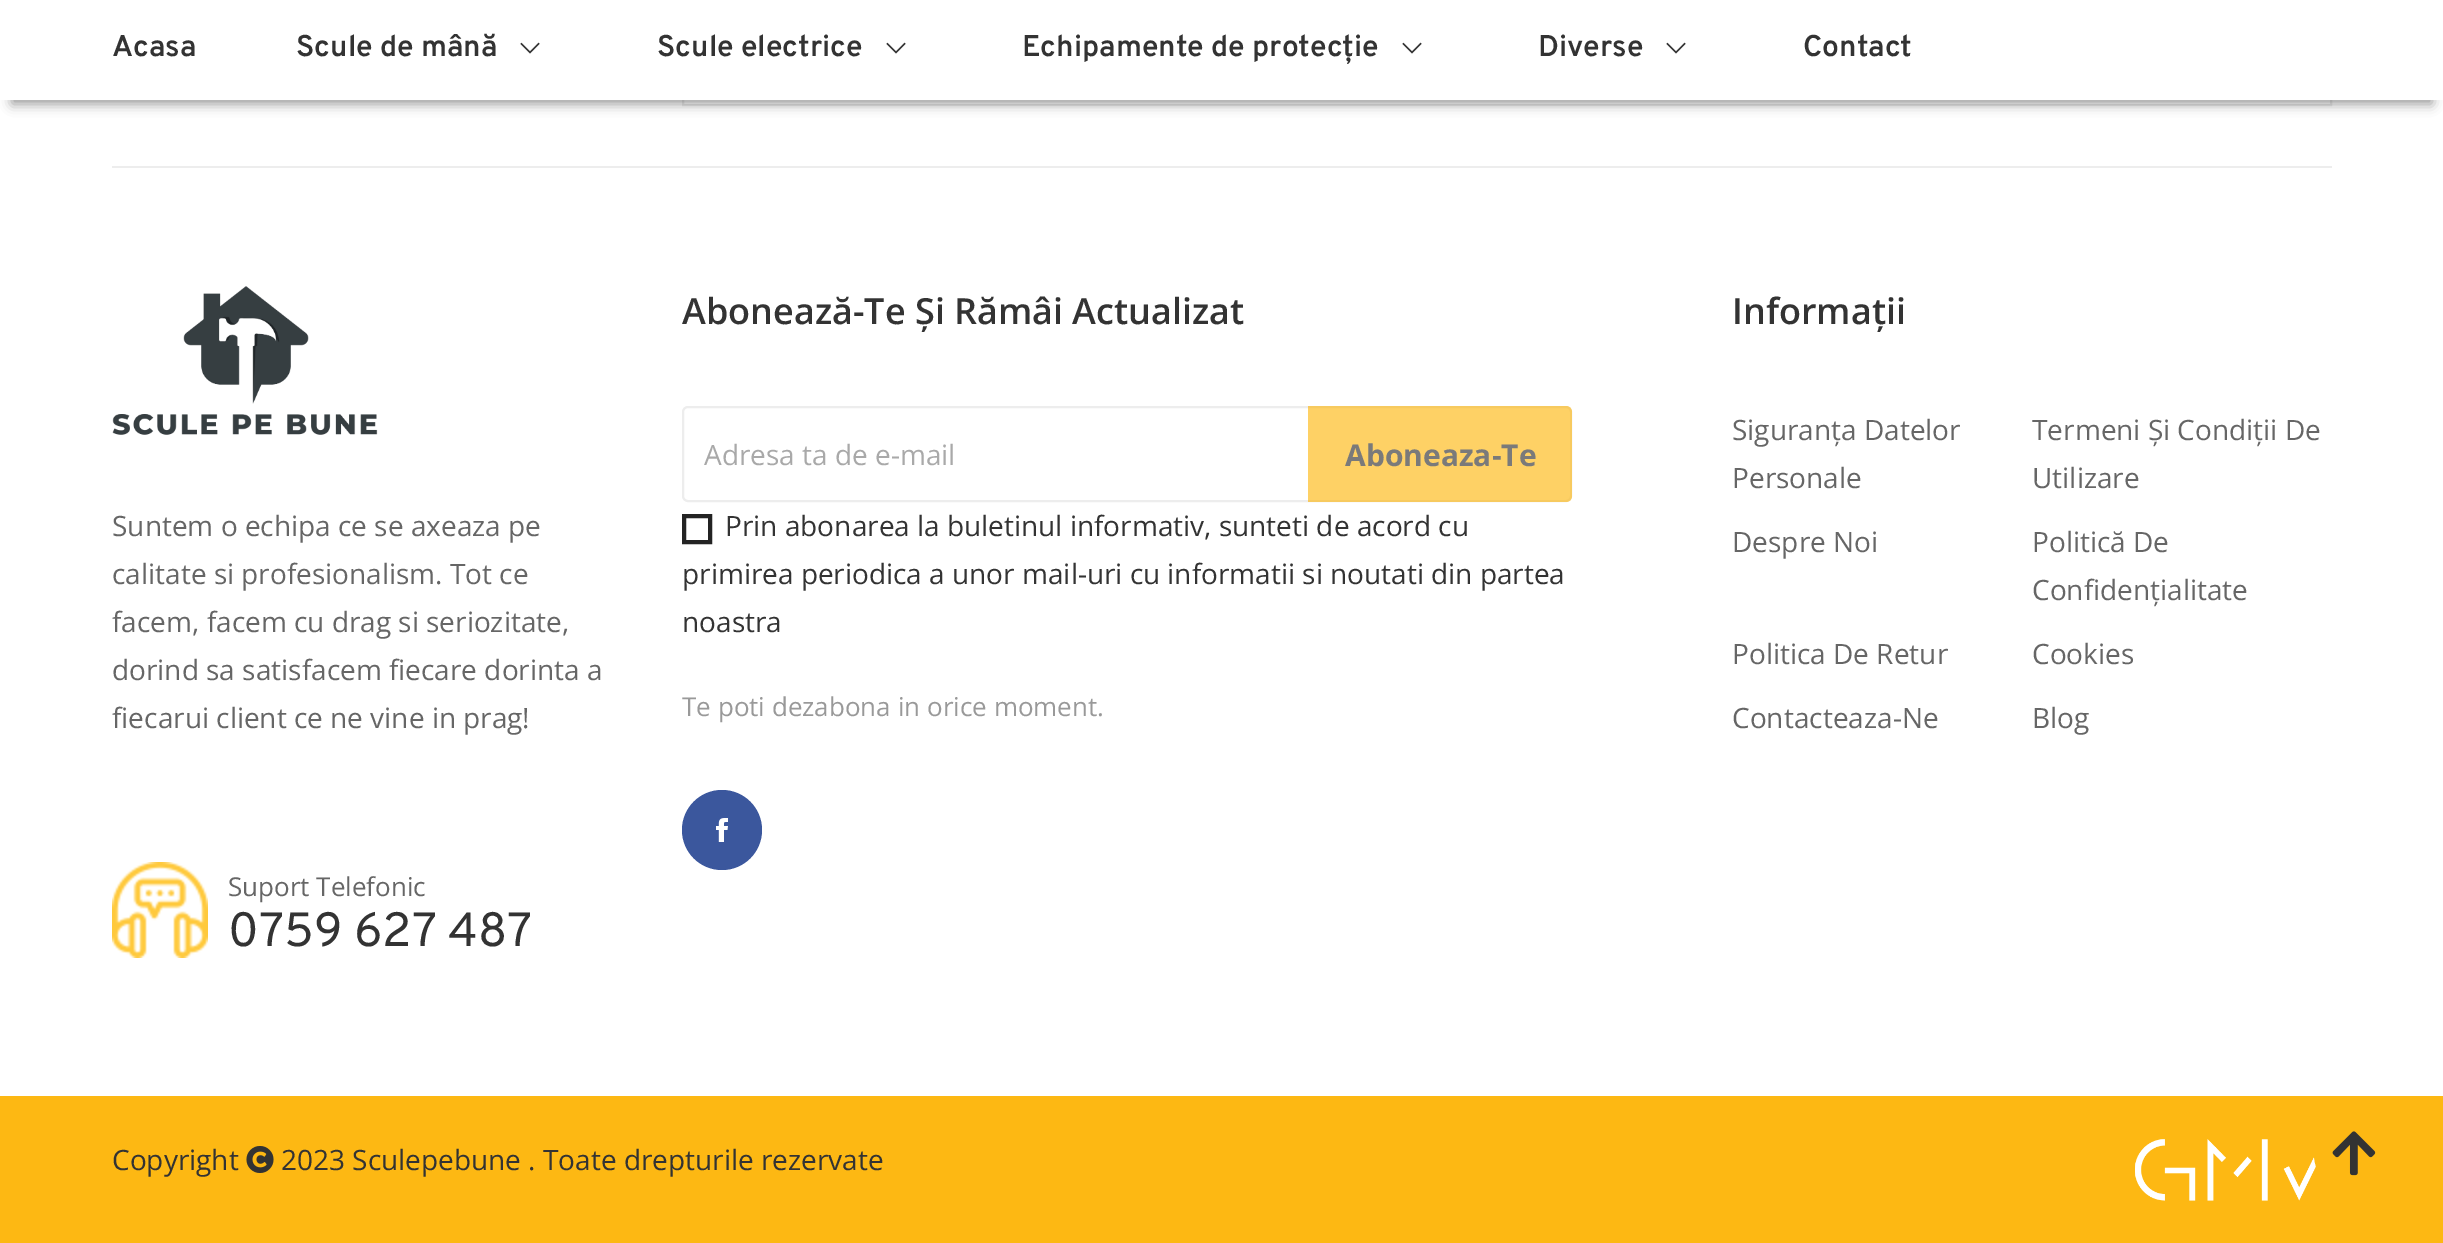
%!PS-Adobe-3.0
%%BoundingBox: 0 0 2443 1243
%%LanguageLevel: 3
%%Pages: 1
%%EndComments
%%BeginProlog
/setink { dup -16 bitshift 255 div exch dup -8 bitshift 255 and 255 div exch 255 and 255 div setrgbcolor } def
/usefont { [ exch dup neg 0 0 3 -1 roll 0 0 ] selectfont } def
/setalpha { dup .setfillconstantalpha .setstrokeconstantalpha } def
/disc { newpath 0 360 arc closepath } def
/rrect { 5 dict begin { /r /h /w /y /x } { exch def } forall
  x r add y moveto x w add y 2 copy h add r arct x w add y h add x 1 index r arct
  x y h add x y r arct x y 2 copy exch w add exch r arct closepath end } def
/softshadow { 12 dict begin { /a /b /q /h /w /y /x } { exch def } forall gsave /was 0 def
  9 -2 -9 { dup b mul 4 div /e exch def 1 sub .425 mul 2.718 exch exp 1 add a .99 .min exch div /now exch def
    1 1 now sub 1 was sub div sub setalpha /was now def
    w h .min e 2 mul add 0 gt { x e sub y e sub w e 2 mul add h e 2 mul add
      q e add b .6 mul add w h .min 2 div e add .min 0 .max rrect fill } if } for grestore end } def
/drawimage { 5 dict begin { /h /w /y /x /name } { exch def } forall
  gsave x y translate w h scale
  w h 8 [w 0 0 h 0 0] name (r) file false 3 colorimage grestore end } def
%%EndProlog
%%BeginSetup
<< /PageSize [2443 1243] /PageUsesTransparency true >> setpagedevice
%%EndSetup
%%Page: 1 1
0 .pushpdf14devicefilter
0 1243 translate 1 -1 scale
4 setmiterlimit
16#FFFFFF setink
0 0 2443 1243 rectfill
16#EDEDED setink
2 setlinewidth
683 -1 1648 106 rectstroke
16#000000 setink
12 28 2420 76 0 6 0.4 softshadow
16#FFFFFF setink
0 0 2443 100 rectfill
/Overpass-SemiBold 30 usefont
16#333333 setink
112 56 moveto (Acasa) show
296 56 moveto (Scule de mână) show
(img1.raw) 520 42 20 12 drawimage
657 56 moveto (Scule electrice) show
(img1.raw) 886 42 20 12 drawimage
1022 56 moveto (Echipamente de protecție) show
(img1.raw) 1402 42 20 12 drawimage
1538 56 moveto (Diverse) show
(img1.raw) 1666 42 20 12 drawimage
1803 56 moveto (Contact) show
16#EDEDED setink
112 166 2220 2 rectfill
(img2.raw) 112 286 266 149 drawimage
/OpenSans-Regular 28 usefont
16#666666 setink
[
    [(Suntem o echipa ce se axeaza pe) 112 536]
    [(calitate si profesionalism. Tot ce) 112 584]
    [(facem, facem cu drag si seriozitate,) 112 632]
    [(dorind sa satisfacem fiecare dorinta a) 112 680]
    [(fiecarui client ce ne vine in prag!) 112 728]
] { aload pop moveto show } forall
(img3.raw) 112 862 96 96 drawimage
/OpenSans-Regular 26 usefont
228 896 moveto (Suport Telefonic) show
/Overpass-Regular 48 usefont
16#333333 setink
228 946 moveto (0759 627 487) show
/OpenSans-SemiBold 36 usefont
682 324 moveto (Abonează-Te Și Rămâi Actualizat) show
16#EDEDED setink
683 407 888 94 5 rrect stroke
/OpenSans-Regular 28 usefont
16#A9A9A9 setink
704 465 moveto (Adresa ta de e-mail) show
0.65 setalpha
16#FDB813 setink
1308 406 moveto 1566 406 lineto 1569.5 406 1572 408.5 1572 412 curveto 1572 496 lineto 1572 499.5 1569.5 502 1566 502 curveto 1308 502 lineto closepath fill
/OpenSans-Bold 30 usefont
1 setalpha
16#7A7A7A setink
1345 466 moveto (Aboneaza-Te) show
16#232323 setink
4 setlinewidth
684 516 26 26 rectstroke
/OpenSans-Regular 28 usefont
16#333333 setink
[
    [(Prin abonarea la buletinul informativ, sunteti de acord cu) 725 536]
    [(primirea periodica a unor mail-uri cu informatii si noutati din partea) 682 584]
    [(noastra) 682 632]
] { aload pop moveto show } forall
/OpenSans-Regular 26 usefont
16#999999 setink
682 716 moveto (Te poti dezabona in orice moment.) show
16#3B579D setink
722 830 40 disc fill
(img4.raw) 716 818 12 24 drawimage
/OpenSans-SemiBold 36 usefont
16#333333 setink
1732 324 moveto (Informații) show
/OpenSans-Regular 28 usefont
16#666666 setink
[
    [(Siguranța Datelor) 1732 440]
    [(Personale) 1732 488]
    [(Termeni Și Condiții De) 2032 440]
    [(Utilizare) 2032 488]
    [(Despre Noi) 1732 552]
    [(Politică De) 2032 552]
    [(Confidențialitate) 2032 600]
    [(Politica De Retur) 1732 664]
    [(Cookies) 2032 664]
    [(Contacteaza-Ne) 1732 728]
    [(Blog) 2032 728]
] { aload pop moveto show } forall
16#FDB813 setink
0 1096 2443 147 rectfill
16#333333 setink
112 1170 moveto (Copyright) show
(img5.raw) 246 1146 28 27 drawimage
281 1170 moveto (2023 Sculepebune . Toate drepturile rezervate) show
(img6.raw) 2135 1139 181 62 drawimage
16#FDB813 setink
2354 1154 40 disc fill
(img7.raw) 2332 1131 44 45 drawimage
.poppdf14devicefilter showpage
%%EOF
